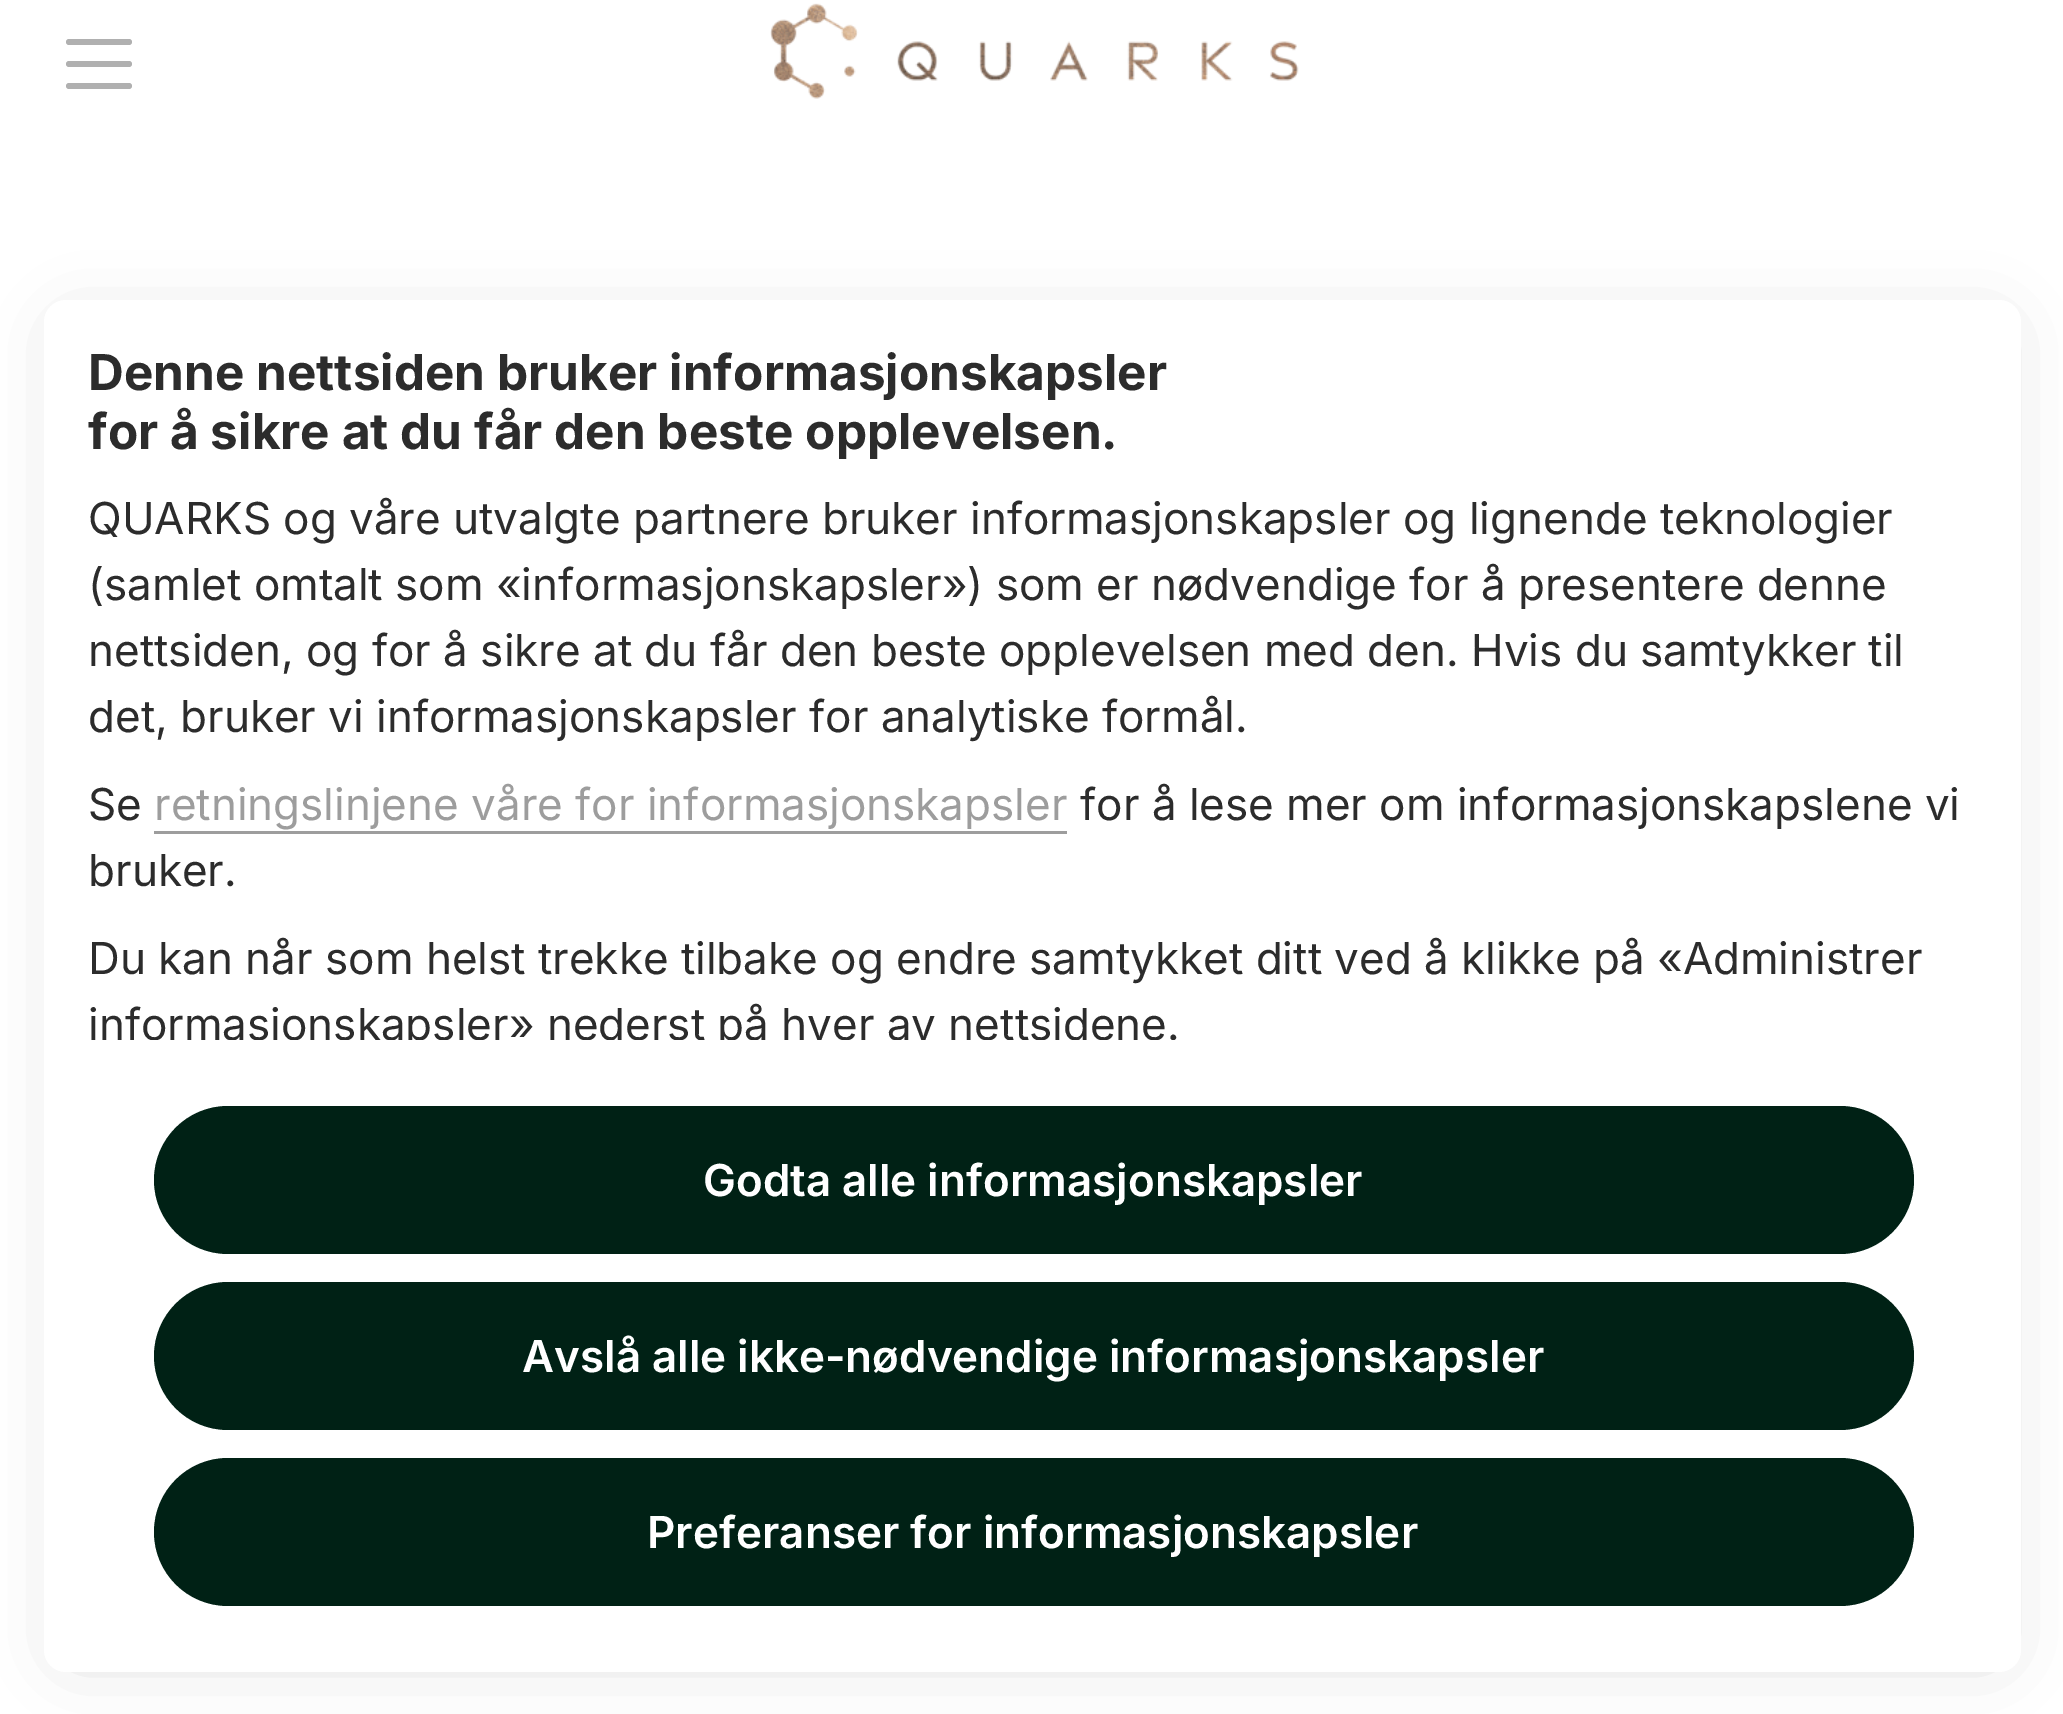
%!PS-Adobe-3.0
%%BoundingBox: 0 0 2063 1714
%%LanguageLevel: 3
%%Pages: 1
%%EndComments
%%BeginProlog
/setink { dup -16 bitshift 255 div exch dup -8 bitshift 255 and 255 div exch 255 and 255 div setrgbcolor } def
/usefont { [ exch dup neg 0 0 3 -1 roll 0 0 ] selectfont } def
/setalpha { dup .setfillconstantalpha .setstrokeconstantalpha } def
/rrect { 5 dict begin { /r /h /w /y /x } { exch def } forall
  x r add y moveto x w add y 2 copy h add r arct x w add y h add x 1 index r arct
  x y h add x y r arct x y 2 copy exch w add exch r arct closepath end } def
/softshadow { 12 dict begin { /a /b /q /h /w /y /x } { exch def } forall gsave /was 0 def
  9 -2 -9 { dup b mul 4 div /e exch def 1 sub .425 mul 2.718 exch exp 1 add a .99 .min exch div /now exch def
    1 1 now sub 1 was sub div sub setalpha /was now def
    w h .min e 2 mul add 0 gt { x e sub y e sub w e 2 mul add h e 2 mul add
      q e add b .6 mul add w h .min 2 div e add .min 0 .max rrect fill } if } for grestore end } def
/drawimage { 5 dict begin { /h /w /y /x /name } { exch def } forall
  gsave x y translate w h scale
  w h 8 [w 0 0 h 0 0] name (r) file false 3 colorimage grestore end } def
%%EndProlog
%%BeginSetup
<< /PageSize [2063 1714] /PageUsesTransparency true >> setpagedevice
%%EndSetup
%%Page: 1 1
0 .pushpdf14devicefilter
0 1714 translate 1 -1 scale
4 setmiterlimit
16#FFFFFF setink
0 0 2063 1714 rectfill
16#B0B0B0 setink
66 39 66 6 3 rrect fill
66 61 66 6 3 rrect fill
66 83 66 6 3 rrect fill
(img1.raw) 770 3 529 96 drawimage
16#000000 setink
72 333 1922 1317 0 37 0.18 softshadow
16#FFFFFF setink
44 300 1977 1372 22 rrect fill
/Inter-Bold 49.5 usefont
16#2C2C2C setink
88 390 moveto (Denne nettsiden bruker informasjonskapsler) show
88 449 moveto (for å sikre at du får den beste opplevelsen.) show
/Inter-Regular 44 usefont
[
    [(QUARKS og våre utvalgte partnere bruker informasjonskapsler og lignende teknologier) 88 534]
    [(\(samlet omtalt som «informasjonskapsler»\) som er nødvendige for å presentere denne) 88 600]
    [(nettsiden, og for å sikre at du får den beste opplevelsen med den. Hvis du samtykker til) 88 666]
    [(det, bruker vi informasjonskapsler for analytiske formål.) 88 732]
    [(Se) 88 820]
] { aload pop moveto show } forall
16#9D9D9D setink
154 820 moveto (retningslinjene våre for informasjonskapsler) show
154 831 913 3 rectfill
16#2C2C2C setink
[
    [(for å lese mer om informasjonskapslene vi) 1080 820]
    [(bruker.) 88 886]
    [(Du kan når som helst trekke tilbake og endre samtykket ditt ved å klikke på «Administrer) 88 974]
] { aload pop moveto show } forall
gsave
88 344 1889 696 rectclip
88 1040 moveto (informasjonskapsler» nederst på hver av nettsidene.) show
grestore
16#002115 setink
154 1106 1760 148 74 rrect fill
/Inter-SemiBold 44 usefont
16#FFFFFF setink
703 1196 moveto (Godta alle informasjonskapsler) show
16#002115 setink
154 1282 1760 148 74 rrect fill
16#FFFFFF setink
522 1372 moveto (Avslå alle ikke-nødvendige informasjonskapsler) show
16#002115 setink
154 1458 1760 148 74 rrect fill
16#FFFFFF setink
647 1548 moveto (Preferanser for informasjonskapsler) show
.poppdf14devicefilter showpage
%%EOF
